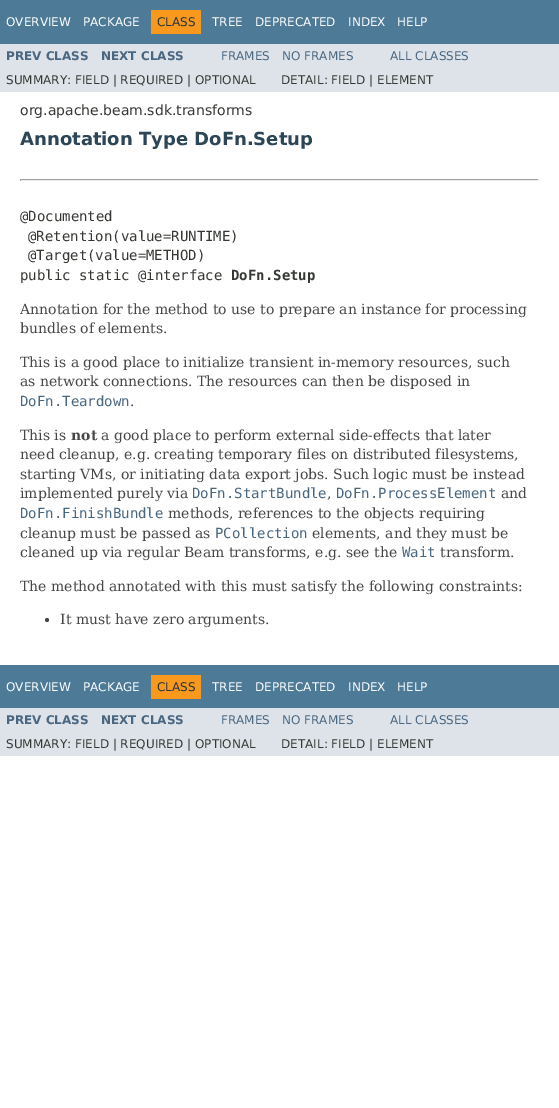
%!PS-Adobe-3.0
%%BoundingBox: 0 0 559 1108
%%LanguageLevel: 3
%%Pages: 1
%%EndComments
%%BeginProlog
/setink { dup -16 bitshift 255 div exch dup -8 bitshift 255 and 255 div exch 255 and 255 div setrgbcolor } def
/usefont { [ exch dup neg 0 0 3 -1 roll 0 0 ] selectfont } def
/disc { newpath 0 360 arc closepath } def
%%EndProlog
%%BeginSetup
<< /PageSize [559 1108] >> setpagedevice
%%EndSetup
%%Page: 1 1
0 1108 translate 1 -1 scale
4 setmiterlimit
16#FFFFFF setink
0 0 559 1108 rectfill
16#4D7A97 setink
0 0 559 44 rectfill
/DejaVuSans-Regular 12 usefont
16#FFFFFF setink
6 26 moveto (OVERVIEW) show
83 26 moveto (PACKAGE) show
16#F8981D setink
151 10 50 24 rectfill
16#253441 setink
157 26 moveto (CLASS) show
16#FFFFFF setink
[
    [(TREE) 212 26]
    [(DEPRECATED) 255 26]
    [(INDEX) 348 26]
    [(HELP) 397 26]
] { aload pop moveto show } forall
16#DEE3E9 setink
0 44 559 48 rectfill
/DejaVuSans-Bold 12 usefont
16#4A6782 setink
6 60 moveto (PREV CLASS) show
101 60 moveto (NEXT CLASS) show
/DejaVuSans-Regular 12 usefont
[
    [(FRAMES) 221 60]
    [(NO FRAMES) 282 60]
    [(ALL CLASSES) 390 60]
] { aload pop moveto show } forall
16#353833 setink
6 84 moveto (SUMMARY: FIELD | REQUIRED | OPTIONAL) show
281 84 moveto (DETAIL: FIELD | ELEMENT) show
/DejaVuSans-Regular 14 usefont
20 115 moveto (org.apache.beam.sdk.transforms) show
/DejaVuSans-Bold 18 usefont
16#2C4557 setink
20 145 moveto (Annotation Type DoFn.Setup) show
[
    [20 179 519 1 16#9F9F9F]
    [538 179 1 2 16#EEEEEE]
    [20 180 519 1 16#EEEEEE]
    [20 179 1 2 16#9F9F9F]
] { aload pop setink rectfill } forall
/DejaVuSansMono-Regular 14 usefont
16#353833 setink
[
    [(@Documented) 20 221]
    [(@Retention\(value=RUNTIME\)) 28 241]
    [(@Target\(value=METHOD\)) 28 260]
    [(public static @interface) 20 280]
] { aload pop moveto show } forall
/DejaVuSansMono-Bold 14 usefont
231 280 moveto (DoFn.Setup) show
/DejaVuSerif-Regular 14 usefont
16#474747 setink
[
    [(Annotation for the method to use to prepare an instance for processing) 20 314]
    [(bundles of elements.) 20 333]
    [(This is a good place to initialize transient in-memory resources, such) 20 367]
    [(as network connections. The resources can then be disposed in) 20 386]
] { aload pop moveto show } forall
/DejaVuSansMono-Regular 14 usefont
16#4A6782 setink
20 406 moveto (DoFn.Teardown) show
/DejaVuSerif-Regular 14 usefont
16#474747 setink
130 406 moveto (.) show
20 440 moveto (This is) show
/DejaVuSerif-Bold 14 usefont
71 440 moveto (not) show
/DejaVuSerif-Regular 14 usefont
[
    [(a good place to perform external side-effects that later) 101 440]
    [(need cleanup, e.g. creating temporary files on distributed filesystems,) 20 459]
    [(starting VMs, or initiating data export jobs. Such logic must be instead) 20 479]
    [(implemented purely via) 20 498]
] { aload pop moveto show } forall
/DejaVuSansMono-Regular 14 usefont
16#4A6782 setink
192 498 moveto (DoFn.StartBundle) show
/DejaVuSerif-Regular 14 usefont
16#474747 setink
327 498 moveto (,) show
/DejaVuSansMono-Regular 14 usefont
16#4A6782 setink
336 498 moveto (DoFn.ProcessElement) show
/DejaVuSerif-Regular 14 usefont
16#474747 setink
501 498 moveto (and) show
/DejaVuSansMono-Regular 14 usefont
16#4A6782 setink
20 518 moveto (DoFn.FinishBundle) show
/DejaVuSerif-Regular 14 usefont
16#474747 setink
168 518 moveto (methods, references to the objects requiring) show
20 538 moveto (cleanup must be passed as) show
/DejaVuSansMono-Regular 14 usefont
16#4A6782 setink
215 538 moveto (PCollection) show
/DejaVuSerif-Regular 14 usefont
16#474747 setink
312 538 moveto (elements, and they must be) show
20 557 moveto (cleaned up via regular Beam transforms, e.g. see the) show
/DejaVuSansMono-Regular 14 usefont
16#4A6782 setink
402 557 moveto (Wait) show
/DejaVuSerif-Regular 14 usefont
16#474747 setink
440 557 moveto (transform.) show
20 591 moveto (The method annotated with this must satisfy the following constraints:) show
47 620 2 disc fill
60 624 moveto (It must have zero arguments.) show
16#4D7A97 setink
0 665 559 43 rectfill
/DejaVuSans-Regular 12 usefont
16#FFFFFF setink
6 691 moveto (OVERVIEW) show
83 691 moveto (PACKAGE) show
16#F8981D setink
151 675 50 24 rectfill
16#253441 setink
157 691 moveto (CLASS) show
16#FFFFFF setink
[
    [(TREE) 212 691]
    [(DEPRECATED) 255 691]
    [(INDEX) 348 691]
    [(HELP) 397 691]
] { aload pop moveto show } forall
16#DEE3E9 setink
0 708 559 48 rectfill
/DejaVuSans-Bold 12 usefont
16#4A6782 setink
6 724 moveto (PREV CLASS) show
101 724 moveto (NEXT CLASS) show
/DejaVuSans-Regular 12 usefont
[
    [(FRAMES) 221 724]
    [(NO FRAMES) 282 724]
    [(ALL CLASSES) 390 724]
] { aload pop moveto show } forall
16#353833 setink
6 748 moveto (SUMMARY: FIELD | REQUIRED | OPTIONAL) show
281 748 moveto (DETAIL: FIELD | ELEMENT) show
showpage
%%EOF
